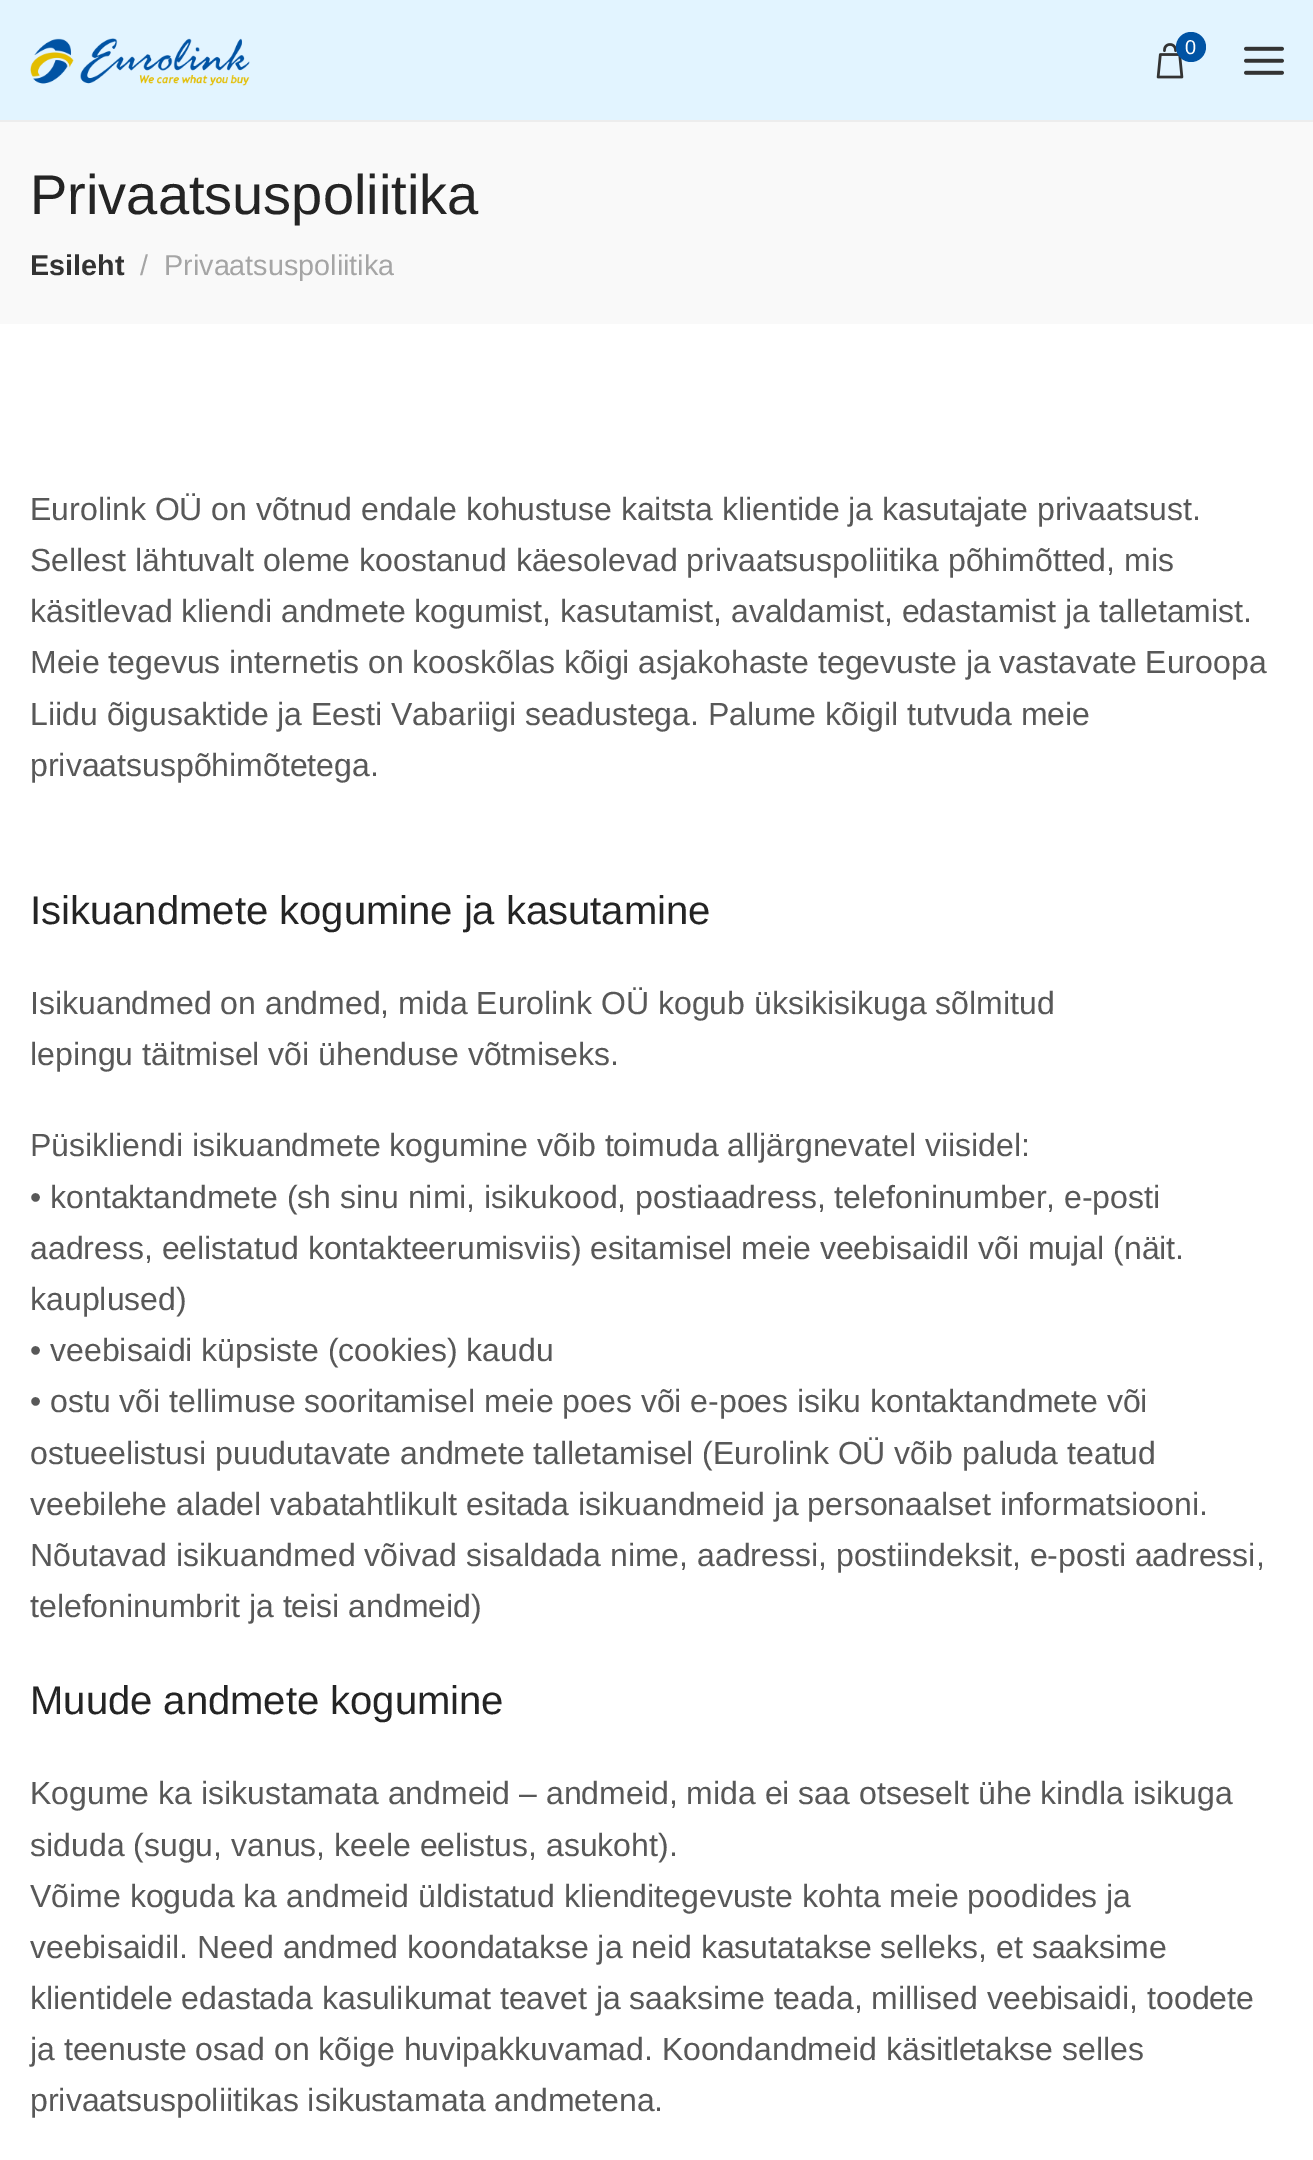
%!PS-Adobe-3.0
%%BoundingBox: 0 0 1313 2160
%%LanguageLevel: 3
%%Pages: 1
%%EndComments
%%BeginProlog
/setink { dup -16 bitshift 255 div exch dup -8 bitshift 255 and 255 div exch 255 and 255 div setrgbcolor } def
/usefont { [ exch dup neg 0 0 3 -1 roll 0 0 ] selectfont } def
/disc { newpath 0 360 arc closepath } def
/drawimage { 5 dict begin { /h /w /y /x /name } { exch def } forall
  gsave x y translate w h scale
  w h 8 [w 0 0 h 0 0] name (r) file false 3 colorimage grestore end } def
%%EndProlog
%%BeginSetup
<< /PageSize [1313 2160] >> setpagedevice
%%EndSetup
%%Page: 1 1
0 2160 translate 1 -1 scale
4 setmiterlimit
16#FFFFFF setink
0 0 1313 2160 rectfill
16#E2F4FF setink
0 0 1313 120 rectfill
16#EDEDED setink
0 120 1313 2 rectfill
(img1.raw) 30 38 220 48 drawimage
(img2.raw) 1156 43 28 36 drawimage
16#0053A4 setink
1191 47 15 disc fill
/LiberationSans-Regular 20 usefont
16#FFFFFF setink
1185 54 moveto (0) show
(img3.raw) 1244 46 40 29 drawimage
16#F9F9F9 setink
0 122 1313 202 rectfill
/LiberationSans-Regular 56 usefont
16#242424 setink
30 214 moveto (Privaatsuspoliitika) show
/LiberationSans-Bold 28.75 usefont
16#333333 setink
30 275 moveto (Esileht) show
/LiberationSans-Regular 28.75 usefont
16#A5A5A5 setink
140 275 moveto (/) show
164 275 moveto (Privaatsuspoliitika) show
/LiberationSans-Regular 32 usefont
16#585858 setink
[
    [(Eurolink OÜ on võtnud endale kohustuse kaitsta klientide ja kasutajate privaatsust.) 30 520]
    [(Sellest lähtuvalt oleme koostanud käesolevad privaatsuspoliitika põhimõtted, mis) 30 571]
    [(käsitlevad kliendi andmete kogumist, kasutamist, avaldamist, edastamist ja talletamist.) 30 622]
    [(Meie tegevus internetis on kooskõlas kõigi asjakohaste tegevuste ja vastavate Euroopa) 30 673]
    [(Liidu õigusaktide ja Eesti Vabariigi seadustega. Palume kõigil tutvuda meie) 30 725]
    [(privaatsuspõhimõtetega.) 30 776]
] { aload pop moveto show } forall
/LiberationSans-Regular 40 usefont
16#242424 setink
30 924 moveto (Isikuandmete kogumine ja kasutamine) show
/LiberationSans-Regular 32 usefont
16#585858 setink
[
    [(Isikuandmed on andmed, mida Eurolink OÜ kogub üksikisikuga sõlmitud) 30 1014]
    [(lepingu täitmisel või ühenduse võtmiseks.) 30 1065]
    [(Püsikliendi isikuandmete kogumine võib toimuda alljärgnevatel viisidel:) 30 1156]
    [(• kontaktandmete \(sh sinu nimi, isikukood, postiaadress, telefoninumber, e-posti) 30 1208]
    [(aadress, eelistatud kontakteerumisviis\) esitamisel meie veebisaidil või mujal \(näit.) 30 1259]
    [(kauplused\)) 30 1310]
    [(• veebisaidi küpsiste \(cookies\) kaudu) 30 1361]
    [(• ostu või tellimuse sooritamisel meie poes või e-poes isiku kontaktandmete või) 30 1412]
    [(ostueelistusi puudutavate andmete talletamisel \(Eurolink OÜ võib paluda teatud) 30 1464]
    [(veebilehe aladel vabatahtlikult esitada isikuandmeid ja personaalset informatsiooni.) 30 1515]
    [(Nõutavad isikuandmed võivad sisaldada nime, aadressi, postiindeksit, e-posti aadressi,) 30 1566]
    [(telefoninumbrit ja teisi andmeid\)) 30 1617]
] { aload pop moveto show } forall
/LiberationSans-Regular 40 usefont
16#242424 setink
30 1714 moveto (Muude andmete kogumine) show
/LiberationSans-Regular 32 usefont
16#585858 setink
[
    [(Kogume ka isikustamata andmeid – andmeid, mida ei saa otseselt ühe kindla isikuga) 30 1804]
    [(siduda \(sugu, vanus, keele eelistus, asukoht\).) 30 1856]
    [(Võime koguda ka andmeid üldistatud klienditegevuste kohta meie poodides ja) 30 1907]
    [(veebisaidil. Need andmed koondatakse ja neid kasutatakse selleks, et saaksime) 30 1958]
    [(klientidele edastada kasulikumat teavet ja saaksime teada, millised veebisaidi, toodete) 30 2009]
    [(ja teenuste osad on kõige huvipakkuvamad. Koondandmeid käsitletakse selles) 30 2060]
    [(privaatsuspoliitikas isikustamata andmetena.) 30 2111]
] { aload pop moveto show } forall
showpage
%%EOF
